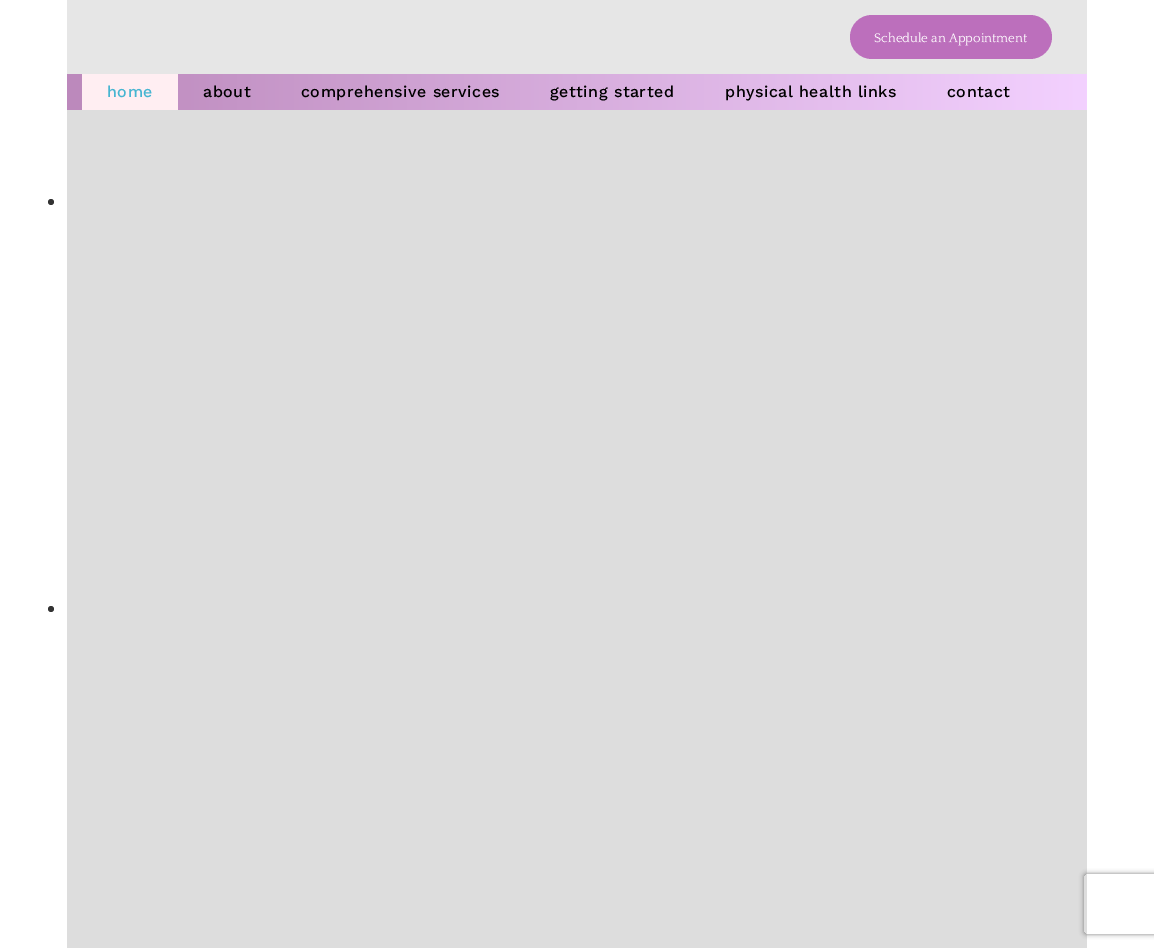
%!PS-Adobe-3.0
%%BoundingBox: 0 0 1154 948
%%LanguageLevel: 3
%%Pages: 1
%%EndComments
%%BeginProlog
/setink { dup -16 bitshift 255 div exch dup -8 bitshift 255 and 255 div exch 255 and 255 div setrgbcolor } def
/usefont { [ exch dup neg 0 0 3 -1 roll 0 0 ] selectfont } def
/setalpha { dup .setfillconstantalpha .setstrokeconstantalpha } def
/disc { newpath 0 360 arc closepath } def
/rrect { 5 dict begin { /r /h /w /y /x } { exch def } forall
  x r add y moveto x w add y 2 copy h add r arct x w add y h add x 1 index r arct
  x y h add x y r arct x y 2 copy exch w add exch r arct closepath end } def
/softshadow { 12 dict begin { /a /b /q /h /w /y /x } { exch def } forall gsave /was 0 def
  9 -2 -9 { dup b mul 4 div /e exch def 1 sub .425 mul 2.718 exch exp 1 add a .99 .min exch div /now exch def
    1 1 now sub 1 was sub div sub setalpha /was now def
    w h .min e 2 mul add 0 gt { x e sub y e sub w e 2 mul add h e 2 mul add
      q e add b .6 mul add w h .min 2 div e add .min 0 .max rrect fill } if } for grestore end } def
%%EndProlog
%%BeginSetup
<< /PageSize [1154 948] /PageUsesTransparency true >> setpagedevice
%%EndSetup
%%Page: 1 1
0 .pushpdf14devicefilter
0 948 translate 1 -1 scale
4 setmiterlimit
16#FFFFFF setink
0 0 1154 948 rectfill
16#E6E6E6 setink
67 0 1020 74 rectfill
16#BC6FBC setink
850 15 202 44 22 rrect fill
/Quattrocento-Regular 13 usefont
16#FFFFFF setink
874 42 moveto (Schedule an Appointment) show
gsave 67 74 moveto 1087 74 lineto 1087 110 lineto 67 110 lineto closepath clip newpath
<< /ShadingType 2 /ColorSpace /DeviceRGB /Coords [67 92 1087 92] /Extend [true true] /Function << /FunctionType 2 /Domain [0 1] /C0 [0.737 0.537 0.737] /C1 [0.953 0.82 1] /N 1 >> >> shfill grestore
16#FFEEF2 setink
82 74 96 36 rectfill
/WorkSans-Medium 16 usefont
16#47B5D1 setink
107 97 moveto 0.5 0 (home) ashow
16#000000 setink
203 97 moveto 0.5 0 (about) ashow
301 97 moveto 0.5 0 (comprehensive services) ashow
550 97 moveto 0.5 0 (getting started) ashow
725 97 moveto 0.5 0 (physical health links) ashow
947 97 moveto 0.5 0 (contact) ashow
16#333333 setink
51 202 3 disc fill
16#DDDDDD setink
67 110 1020 838 rectfill
16#333333 setink
51 609 3 disc fill
gsave
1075 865 moveto 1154 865 lineto 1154 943 lineto 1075 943 lineto closepath 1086 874 moveto 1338 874 lineto 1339 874 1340 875 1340 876 curveto 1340 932 lineto 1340 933 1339 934 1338 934 curveto 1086 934 lineto 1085 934 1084 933 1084 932 curveto 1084 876 lineto 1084 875 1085 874 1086 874 curveto closepath eoclip newpath
16#808080 setink
1084 874 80 60 2 2.5 1 softshadow
grestore
.poppdf14devicefilter showpage
%%EOF
